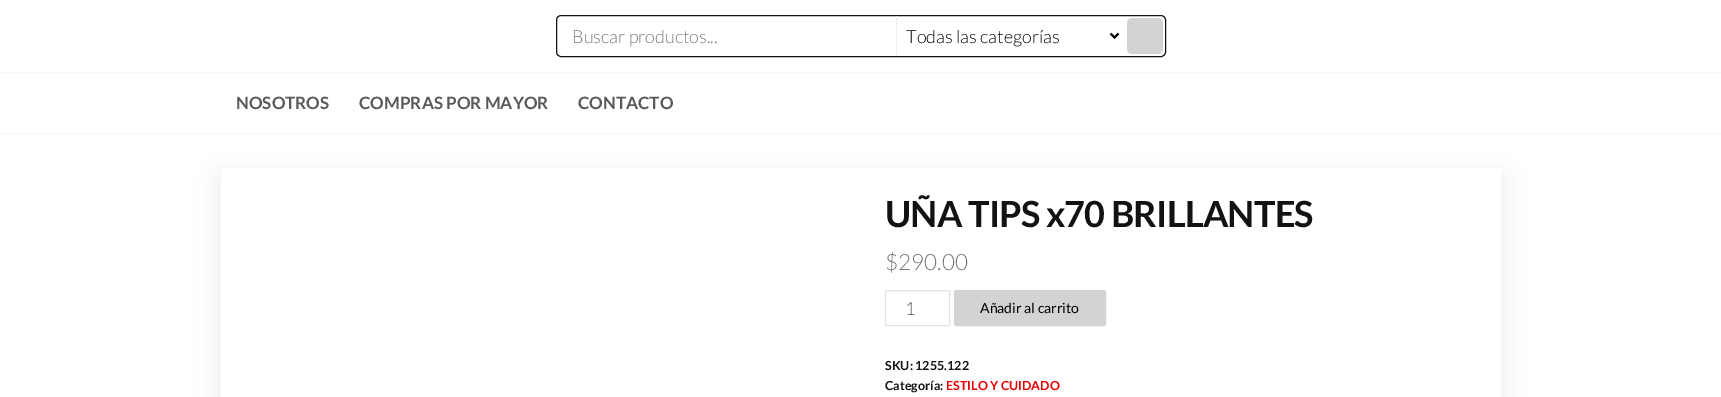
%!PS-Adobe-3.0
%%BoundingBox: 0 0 1721 397
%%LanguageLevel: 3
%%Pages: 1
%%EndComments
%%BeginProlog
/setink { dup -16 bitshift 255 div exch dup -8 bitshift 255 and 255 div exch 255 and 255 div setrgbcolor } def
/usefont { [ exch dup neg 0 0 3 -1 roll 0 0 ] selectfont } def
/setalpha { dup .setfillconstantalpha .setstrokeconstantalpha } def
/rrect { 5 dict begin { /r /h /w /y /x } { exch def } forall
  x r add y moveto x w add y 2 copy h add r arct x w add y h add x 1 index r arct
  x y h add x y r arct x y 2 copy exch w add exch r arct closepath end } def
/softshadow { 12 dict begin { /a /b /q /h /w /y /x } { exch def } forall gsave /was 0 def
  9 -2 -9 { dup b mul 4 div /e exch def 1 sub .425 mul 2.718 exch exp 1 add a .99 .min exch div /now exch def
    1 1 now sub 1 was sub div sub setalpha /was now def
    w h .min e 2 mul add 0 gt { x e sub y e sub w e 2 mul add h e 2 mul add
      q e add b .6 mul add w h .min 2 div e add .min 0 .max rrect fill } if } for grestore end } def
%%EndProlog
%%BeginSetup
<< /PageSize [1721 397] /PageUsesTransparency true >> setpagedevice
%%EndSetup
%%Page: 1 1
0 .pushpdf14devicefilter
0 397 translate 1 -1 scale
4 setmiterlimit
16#FFFFFF setink
0 0 1721 397 rectfill
16#F6F6F6 setink
0 72 1721 1 rectfill
16#121212 setink
556.5 15.5 609 41 4.5 rrect stroke
/Lato-Light 18 usefont
16#777777 setink
572 43 moveto (Buscar productos...) show
16#ECECEC setink
896 16 1 39 rectfill
16#000000 setink
2 setlinewidth
1110.5 33.5 moveto 1114.5 37.5 lineto 1118.5 33.5 lineto stroke
906 43 moveto (Todas las categorías) show
16#D3D3D3 setink
1127 18 36 36 5 rrect fill
16#F6F6F6 setink
0 133 1721 1 rectfill
/Lato-Bold 17 usefont
16#595959 setink
[
    [(NOSOTROS) 236 109]
    [(COMPRAS POR MAYOR) 359 109]
    [(CONTACTO) 578 109]
] { aload pop moveto show } forall
gsave
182 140 moveto 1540 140 lineto 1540 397 lineto 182 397 lineto closepath 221 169 moveto 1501 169 lineto 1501 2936 lineto 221 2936 lineto closepath eoclip newpath
16#192D6E setink
221 179 1280 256 0 12.5 0.1 softshadow
grestore
/Lato-Bold 36 usefont
16#121212 setink
885 227 moveto -0.75 0 (UÑA TIPS x70 BRILLANTES) ashow
/Lato-Light 22.5 usefont
16#777777 setink
885 270 moveto ($290.00) show
16#E2E2E2 setink
1 setlinewidth
885.5 290.5 64 35 rectstroke
/Lato-Light 18 usefont
16#464A4C setink
905 315 moveto (1) show
16#D3D3D3 setink
954.5 290.5 151 35 1.5 rrect gsave fill grestore
stroke
/Lato-Regular 14 usefont
16#000000 setink
980 313 moveto (Añadir al carrito) show
/Lato-Bold 12.5 usefont
16#121212 setink
885 370 moveto (SKU: 1255.122) show
885 390 moveto (Categoría:) show
16#EB0000 setink
946 390 moveto (ESTILO Y CUIDADO) show
.poppdf14devicefilter showpage
%%EOF
